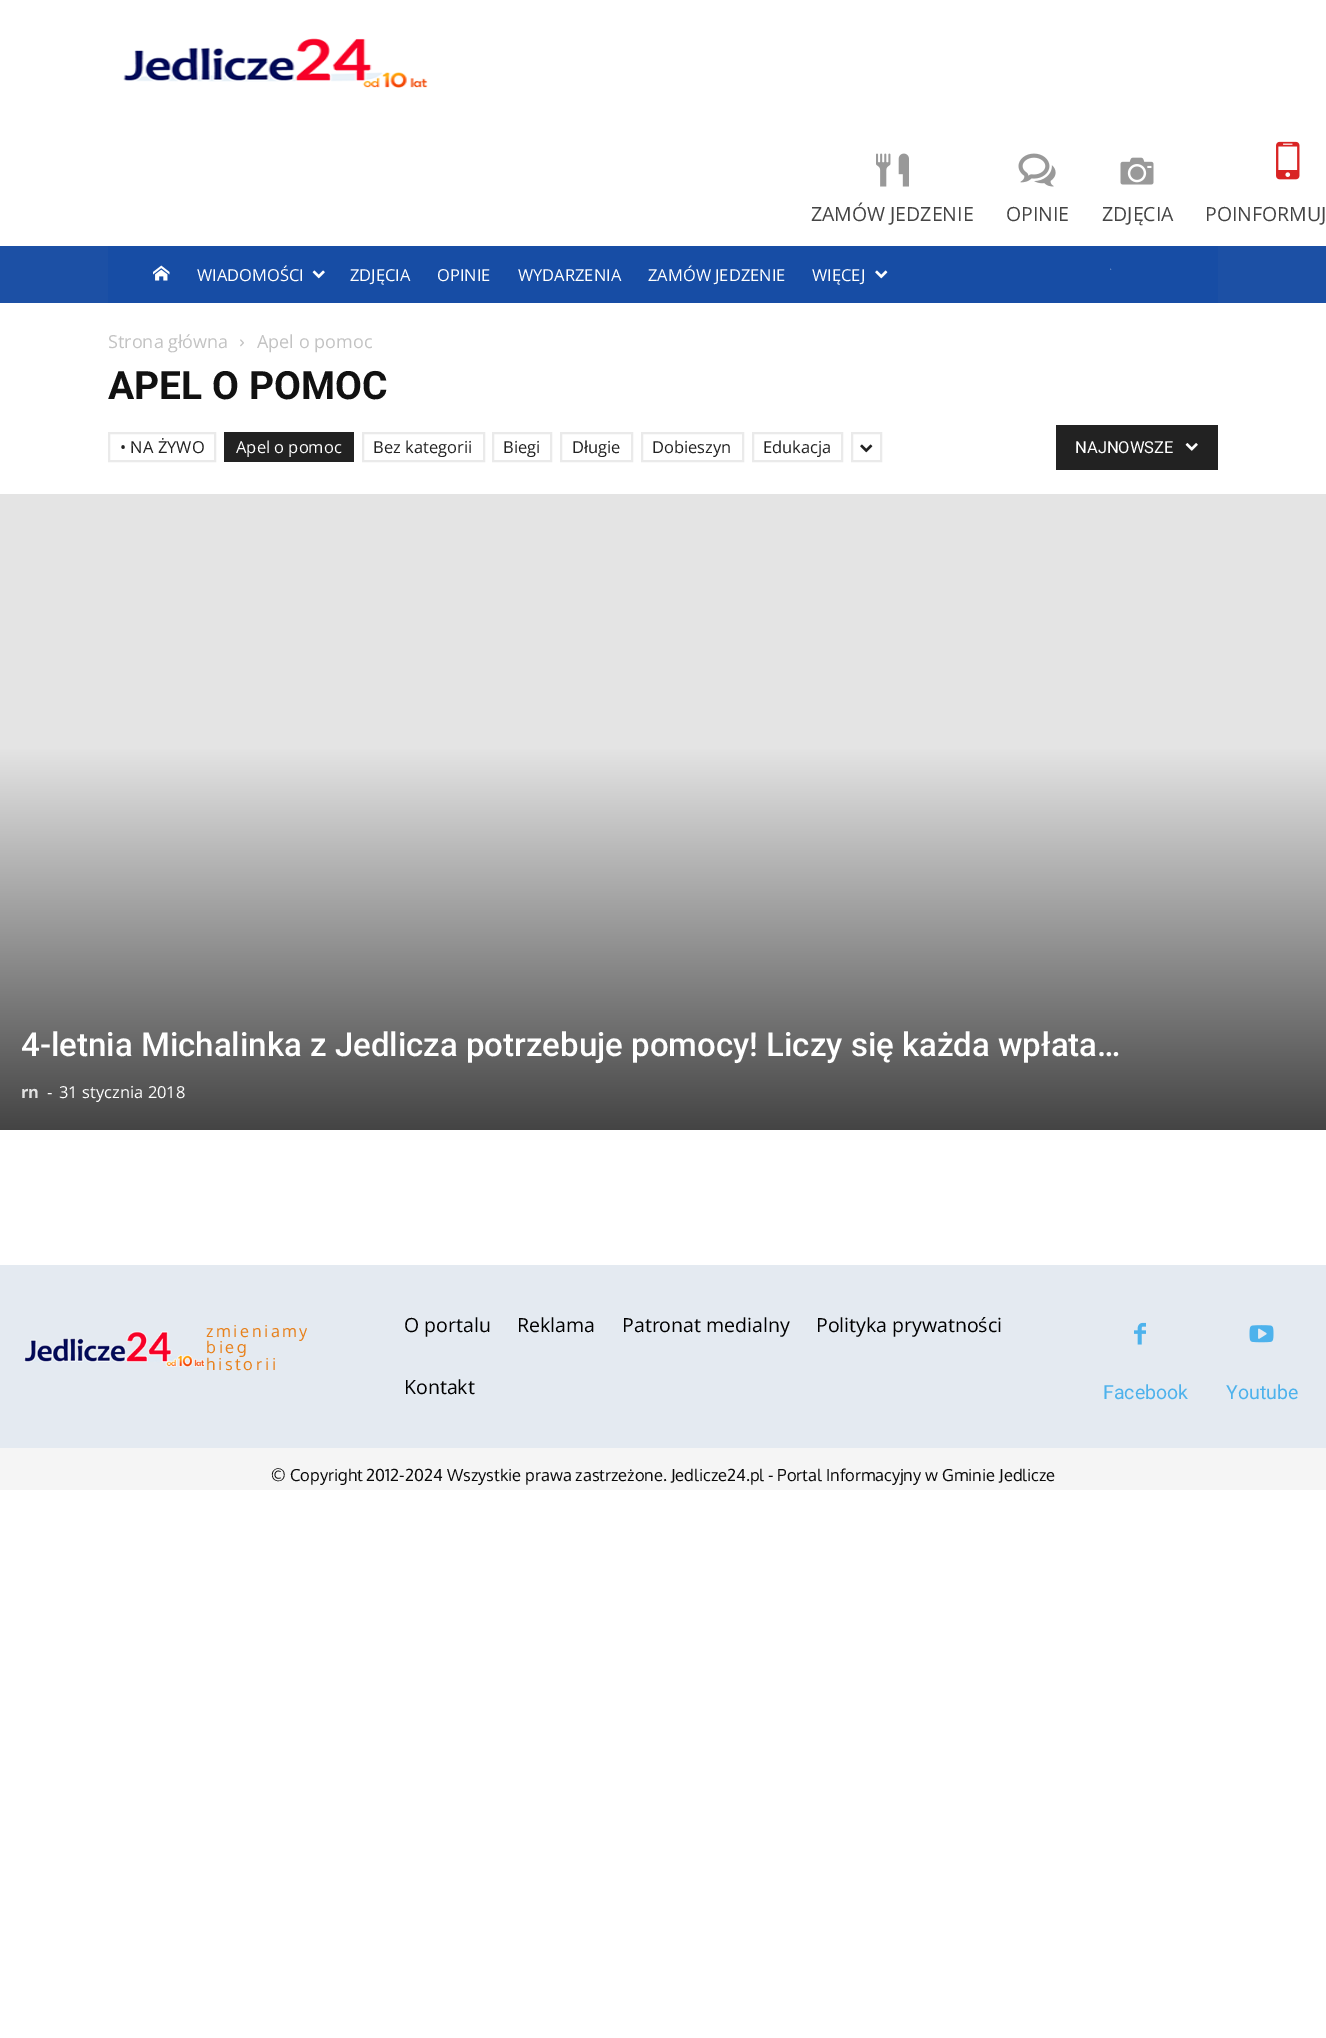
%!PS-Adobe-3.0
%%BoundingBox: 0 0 1326 2038
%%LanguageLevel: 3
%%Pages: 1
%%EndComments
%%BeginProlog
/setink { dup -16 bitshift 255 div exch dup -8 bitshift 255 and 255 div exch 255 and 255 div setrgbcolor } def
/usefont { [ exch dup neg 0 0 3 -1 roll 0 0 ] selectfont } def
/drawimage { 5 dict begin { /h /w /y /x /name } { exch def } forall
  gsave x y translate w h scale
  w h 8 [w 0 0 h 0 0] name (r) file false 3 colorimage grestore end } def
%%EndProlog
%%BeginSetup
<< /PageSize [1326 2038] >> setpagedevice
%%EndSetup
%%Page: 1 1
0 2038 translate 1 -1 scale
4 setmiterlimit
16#FFFFFF setink
0 0 1326 2038 rectfill
(img1.raw) 123 38 305 50 drawimage
(img2.raw) 876 153 33 34 drawimage
/OpenSans-Regular 19.5 usefont
16#444444 setink
811 221 moveto (ZAMÓW JEDZENIE) show
(img3.raw) 1018 153 38 34 drawimage
1006 221 moveto (OPINIE) show
(img4.raw) 1120 157 34 28 drawimage
1102 221 moveto (ZDJĘCIA) show
(img5.raw) 1276 141 24 39 drawimage
1205 221 moveto (POINFORMUJ) show
16#1C50A5 setink
0 246 1326 57 rectfill
16#174DA5 setink
108 246 1110 57 rectfill
(img6.raw) 153 265 17 16 drawimage
/OpenSans-Regular 16.5 usefont
16#FFFFFF setink
197 281 moveto (WIADOMOŚCI) show
(img7.raw) 312 270 13 9 drawimage
[
    [(ZDJĘCIA) 350 281]
    [(OPINIE) 437 281]
    [(WYDARZENIA) 518 281]
    [(ZAMÓW JEDZENIE) 648 281]
    [(WIĘCEJ) 812 281]
] { aload pop moveto show } forall
(img8.raw) 875 270 13 9 drawimage
(img9.raw) 1110 268 2 2 drawimage
/OpenSans-Regular 18 usefont
16#C3C3C3 setink
108 348 moveto (Strona główna) show
(img10.raw) 240 339 4 8 drawimage
257 348 moveto (Apel o pomoc) show
/Roboto-Bold 39 usefont
16#111111 setink
108 399 moveto (APEL O POMOC) show
16#EAEAEA setink
2 setlinewidth
109 433 106 28 rectstroke
/OpenSans-Regular 16.5 usefont
16#222222 setink
120 453 moveto (• NA ŻYWO) show
224 432 130 30 rectfill
16#FFFFFF setink
236 453 moveto (Apel o pomoc) show
16#EAEAEA setink
363 433 121 28 rectstroke
16#222222 setink
373 453 moveto (Bez kategorii) show
16#EAEAEA setink
493 433 58 28 rectstroke
16#222222 setink
503 453 moveto (Biegi) show
16#EAEAEA setink
561 433 71 28 rectstroke
16#222222 setink
572 453 moveto (Długie) show
16#EAEAEA setink
642 433 101 28 rectstroke
16#222222 setink
652 453 moveto (Dobieszyn) show
16#EAEAEA setink
753 433 89 28 rectstroke
16#222222 setink
763 453 moveto (Edukacja) show
16#EAEAEA setink
852 433 29 28 rectstroke
(img11.raw) 860 444 13 9 drawimage
16#222222 setink
1056 425 162 45 rectfill
/Roboto-Regular 16.5 usefont
16#FFFFFF setink
1075 453 moveto (NAJNOWSZE) show
(img12.raw) 1185 443 13 8 drawimage
gsave 0 494 moveto 1326 494 lineto 1326 1130 lineto 0 1130 lineto closepath clip newpath
<< /ShadingType 2 /ColorSpace /DeviceRGB /Coords [663 493 663 1130] /Extend [true true] /Function << /FunctionType 3 /Domain [0 1] /Functions [<< /FunctionType 2 /Domain [0 1] /C0 [0.894 0.894 0.894] /C1 [0.894 0.894 0.894] /N 1 >> << /FunctionType 2 /Domain [0 1] /C0 [0.894 0.894 0.894] /C1 [0.267 0.267 0.267] /N 1 >>] /Bounds [0.4] /Encode [0 1 0 1] >> >> shfill grestore
/Roboto-Medium 33 usefont
21 1056 moveto (4-letnia Michalinka z Jedlicza potrzebuje pomocy! Liczy się każda wpłata…) show
/OpenSans-Bold 16.5 usefont
16#E2E2E2 setink
21 1098 moveto (rn) show
/OpenSans-Regular 16.5 usefont
16#FFFFFF setink
47 1098 moveto (-) show
59 1098 moveto (31 stycznia 2018) show
16#E4EAF1 setink
0 1265 1326 183 rectfill
(img13.raw) 24 1331 181 36 drawimage
/Oxygen-Regular 16.5 usefont
16#E8811B setink
206 1337 moveto 2.75 0 (zmieniamy) ashow
206 1353 moveto 2.75 0 (bieg) ashow
206 1370 moveto 2.75 0 (historii) ashow
/OpenSans-Regular 19.5 usefont
16#000000 setink
[
    [(O portalu) 404 1332]
    [(Reklama) 517 1332]
    [(Patronat medialny) 622 1332]
    [(Polityka prywatności) 816 1332]
    [(Kontakt) 404 1394]
] { aload pop moveto show } forall
(img14.raw) 1134 1322 12 23 drawimage
/Roboto-Regular 19.5 usefont
16#4DB2EC setink
1103 1399 moveto (Facebook) show
(img15.raw) 1249 1325 25 18 drawimage
1226 1399 moveto (Youtube) show
16#F5F5F5 setink
0 1448 1326 42 rectfill
/Oxygen-Regular 16.5 usefont
16#0A0A0A setink
271 1481 moveto (© Copyright 2012-2024 Wszystkie prawa zastrzeżone. Jedlicze24.pl - Portal Informacyjny w Gminie Jedlicze) show
showpage
%%EOF
